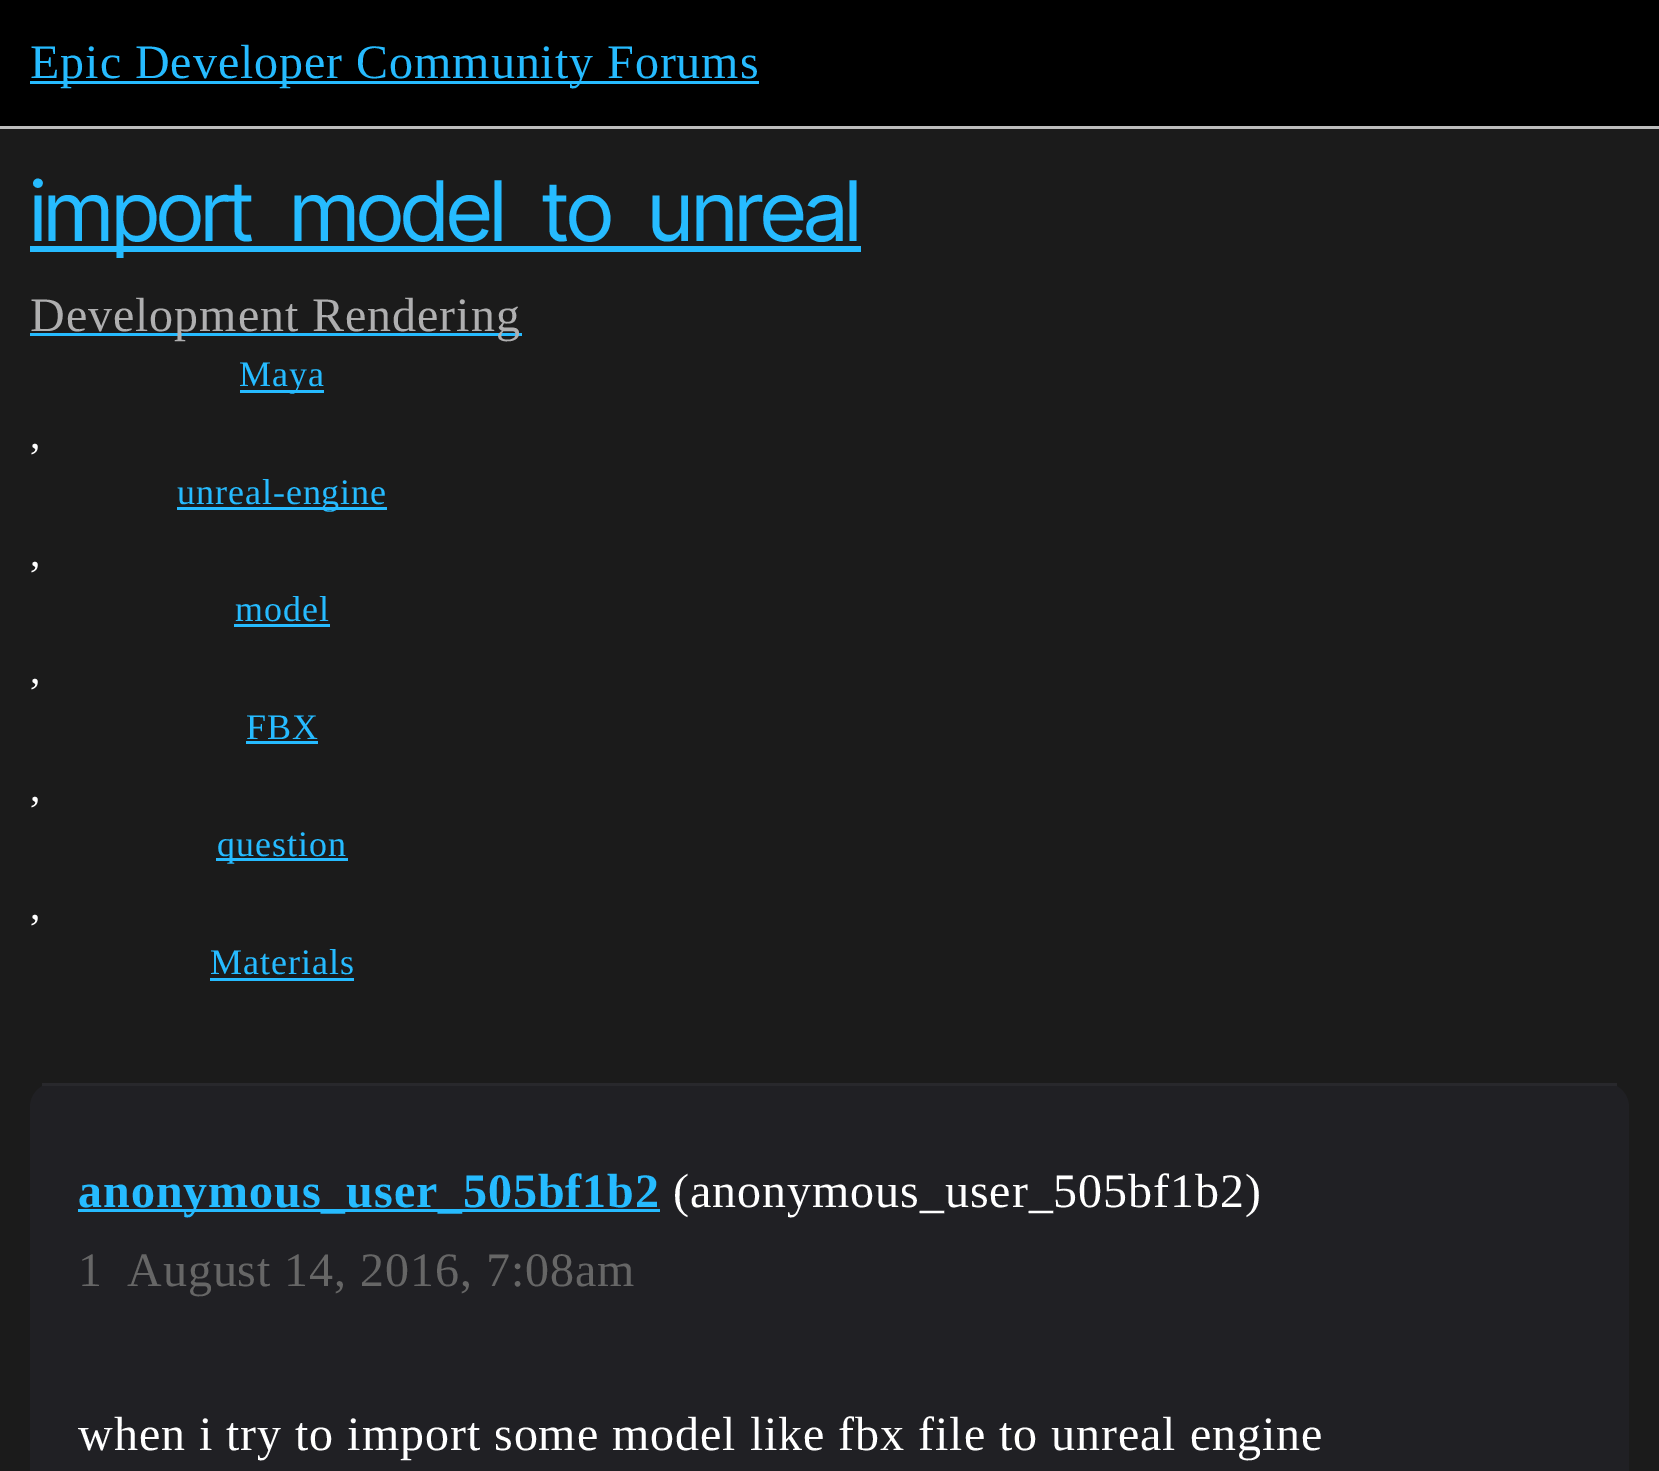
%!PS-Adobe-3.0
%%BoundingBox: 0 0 1659 1471
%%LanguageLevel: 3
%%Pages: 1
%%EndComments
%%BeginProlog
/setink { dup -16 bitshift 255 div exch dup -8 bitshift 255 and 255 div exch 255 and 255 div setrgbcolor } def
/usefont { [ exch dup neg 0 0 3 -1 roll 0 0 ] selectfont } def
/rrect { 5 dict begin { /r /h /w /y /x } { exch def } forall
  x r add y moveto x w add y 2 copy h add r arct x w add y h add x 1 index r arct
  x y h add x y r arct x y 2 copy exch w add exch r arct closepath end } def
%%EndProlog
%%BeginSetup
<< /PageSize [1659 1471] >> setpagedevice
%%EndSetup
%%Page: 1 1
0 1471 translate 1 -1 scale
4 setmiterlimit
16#1B1B1B setink
0 0 1659 1471 rectfill
[
    [0 0 1659 126 16#000000]
    [0 126 1659 3 16#BDBDBD]
    [30 81 729 3 16#26BBFF]
] { aload pop setink rectfill } forall
/LiberationSerif-Regular 48 usefont
30 78 moveto 0.95 0 (Epic Developer Community Forums) ashow
30 246 831 6 rectfill
/InterTight-Regular 83.5 usefont
30 241 moveto 19.5 0 32 -1.5 0 (import model to unreal) awidthshow
30 333 492 3 rectfill
/LiberationSerif-Regular 48 usefont
16#AFAFB0 setink
30 331 moveto 0.95 0 (Development) ashow
312 331 moveto 0.95 0 (Rendering) ashow
16#26BBFF setink
240 390 84 3 rectfill
/LiberationSerif-Regular 36 usefont
239 386 moveto 0.95 0 (Maya) ashow
/LiberationSerif-Regular 42 usefont
16#FFFFFF setink
30 448 moveto 0.95 0 (,) ashow
16#26BBFF setink
177 507 210 3 rectfill
/LiberationSerif-Regular 36 usefont
177 504 moveto 0.95 0 (unreal-engine) ashow
/LiberationSerif-Regular 42 usefont
16#FFFFFF setink
30 566 moveto 0.95 0 (,) ashow
/LiberationSerif-Regular 36 usefont
16#26BBFF setink
235 621 moveto 0.95 0 (model) ashow
234 624 96 3 rectfill
/LiberationSerif-Regular 42 usefont
16#FFFFFF setink
30 683 moveto 0.95 0 (,) ashow
/LiberationSerif-Regular 36 usefont
16#26BBFF setink
246 739 moveto 0.95 0 (FBX) ashow
246 741 72 3 rectfill
/LiberationSerif-Regular 42 usefont
16#FFFFFF setink
30 801 moveto 0.95 0 (,) ashow
16#26BBFF setink
216 858 132 3 rectfill
/LiberationSerif-Regular 36 usefont
217 856 moveto 0.95 0 (question) ashow
/LiberationSerif-Regular 42 usefont
16#FFFFFF setink
30 919 moveto 0.95 0 (,) ashow
/LiberationSerif-Regular 36 usefont
16#26BBFF setink
210 974 moveto 0.95 0 (Materials) ashow
210 978 144 3 rectfill
16#202024 setink
30 1083 1599 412 24 rrect fill
16#28282C setink
42 1083 1575 3 rectfill
16#26BBFF setink
78 1209 582 3 rectfill
/LiberationSerif-Bold 48 usefont
78 1207 moveto 0.95 0 (anonymous_user_505bf1b2) ashow
/LiberationSerif-Regular 48 usefont
16#FFFFFF setink
673 1207 moveto 0.95 0 (\(anonymous_user_505bf1b2\)) ashow
16#666666 setink
78 1286 moveto 0.95 0 (1) ashow
127 1286 moveto 0.95 0 (August 14, 2016, 7:08am) ashow
16#FFFFFF setink
78 1450 moveto 0.95 0 (when i try to import some model like fbx file to unreal engine) ashow
showpage
%%EOF
